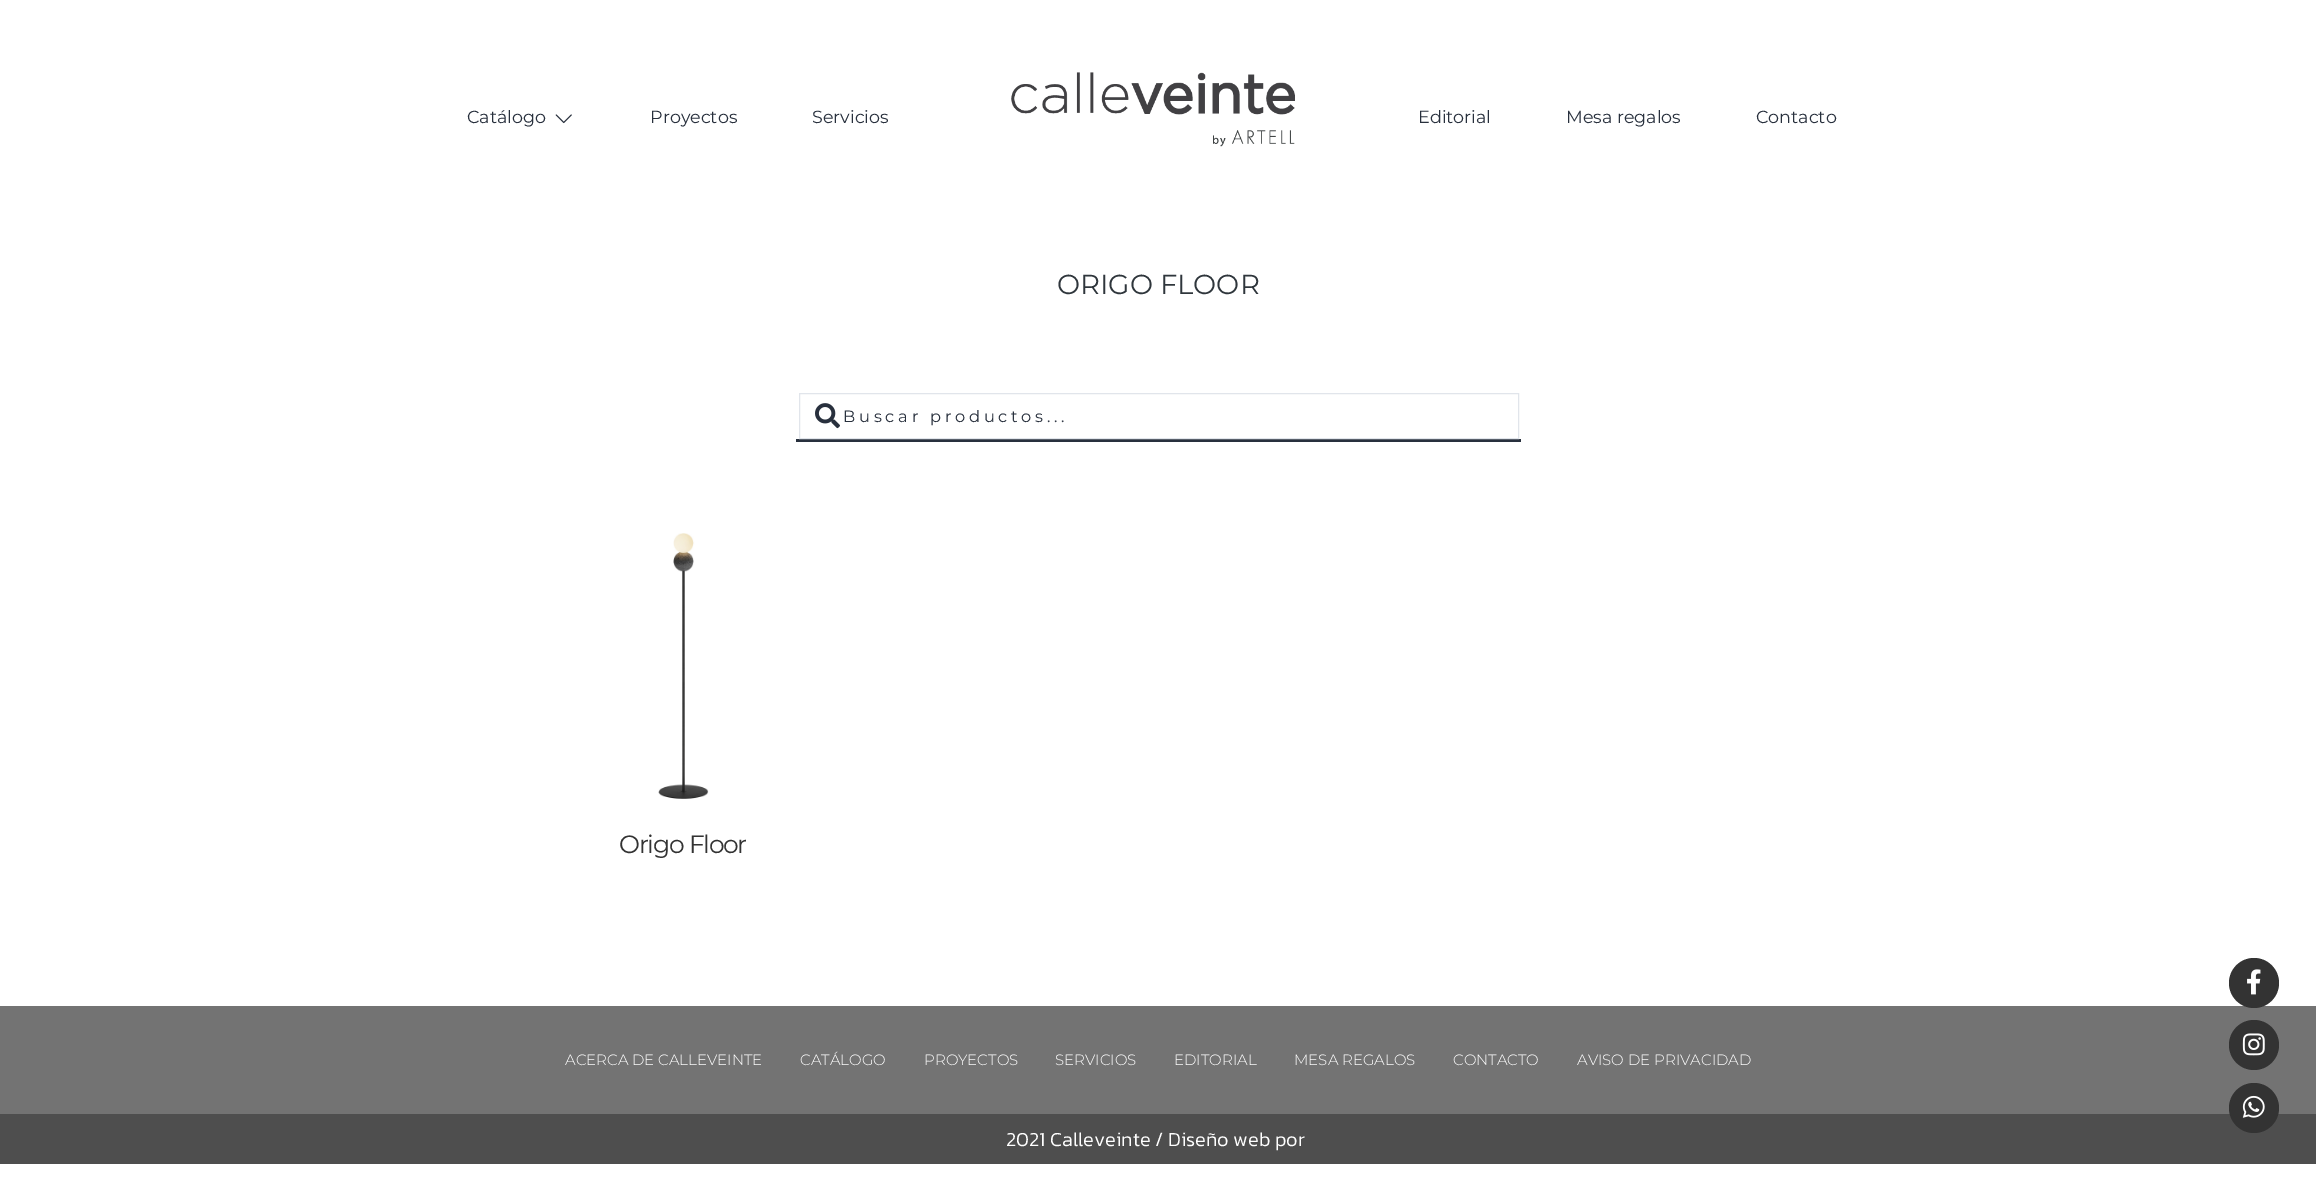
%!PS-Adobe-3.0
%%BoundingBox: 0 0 2316 1195
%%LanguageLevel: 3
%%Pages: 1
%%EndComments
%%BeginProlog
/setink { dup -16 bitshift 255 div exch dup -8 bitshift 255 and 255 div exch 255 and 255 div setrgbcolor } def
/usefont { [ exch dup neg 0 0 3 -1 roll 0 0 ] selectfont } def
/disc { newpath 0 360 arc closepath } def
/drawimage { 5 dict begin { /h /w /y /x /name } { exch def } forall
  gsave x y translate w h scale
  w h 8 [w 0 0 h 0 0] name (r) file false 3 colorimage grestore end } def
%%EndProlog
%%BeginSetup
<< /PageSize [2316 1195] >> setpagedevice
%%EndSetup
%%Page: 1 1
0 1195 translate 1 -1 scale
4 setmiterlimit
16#FFFFFF setink
0 0 2316 1195 rectfill
/Montserrat-Regular 17.5 usefont
16#28303D setink
467 123 moveto (Catálogo) show
(img1.raw) 555 114 17 10 drawimage
650 123 moveto (Proyectos) show
812 123 moveto (Servicios) show
(img2.raw) 1011 72 284 75 drawimage
16#737373 setink
0 1006 2316 108 rectfill
16#333333 setink
2254 983 25 disc fill
(img3.raw) 2247 969 14 26 drawimage
2254 1045 25 disc fill
(img4.raw) 2242 1033 23 23 drawimage
16#4E4E4E setink
0 1114 2316 50 rectfill
16#333333 setink
2254 1108 25 disc fill
(img5.raw) 2242 1095 23 23 drawimage
16#28303D setink
[
    [(Editorial) 1418 123]
    [(Mesa regalos) 1566 123]
    [(Contacto) 1756 123]
] { aload pop moveto show } forall
/Montserrat-Regular 27.5 usefont
16#2F363C setink
1057 294 moveto (ORIGO FLOOR) show
16#28303D setink
796 439 725 3 rectfill
16#E1E5EB setink
799.5 393.5 719 45 rectstroke
(img6.raw) 815 403 25 26 drawimage
/Montserrat-Regular 16.25 usefont
16#28303D setink
843 422 moveto 3.75 0 (Buscar productos...) ashow
(img7.raw) 658 533 51 266 drawimage
/Montserrat-Regular 25 usefont
16#333333 setink
619 853 moveto -1.25 0 (Origo Floor) ashow
/Montserrat-Light 15 usefont
16#FFFFFF setink
[
    [(ACERCA DE CALLEVEINTE) 565 1065]
    [(CATÁLOGO) 800 1065]
    [(PROYECTOS) 924 1065]
    [(SERVICIOS) 1055 1065]
    [(EDITORIAL) 1174 1065]
    [(MESA REGALOS) 1294 1065]
    [(CONTACTO) 1453 1065]
    [(AVISO DE PRIVACIDAD) 1577 1065]
] { aload pop moveto show } forall
/Kanit-Light 20 usefont
1006 1146 moveto (2021 Calleveinte / Diseño web por) show
showpage
%%EOF
